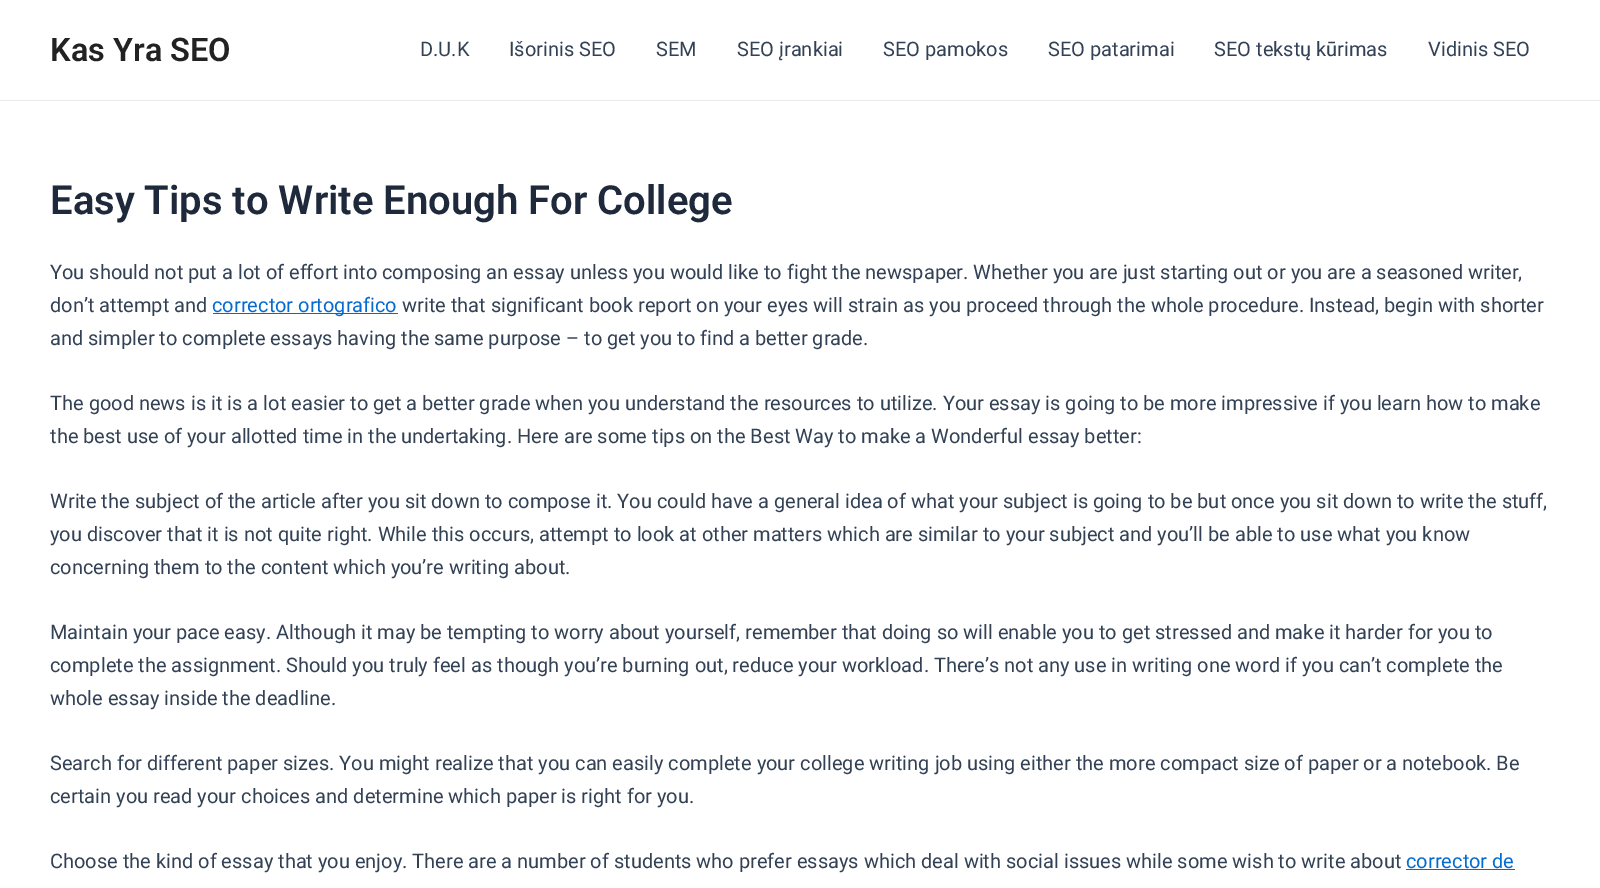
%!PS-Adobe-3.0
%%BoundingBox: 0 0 1600 888
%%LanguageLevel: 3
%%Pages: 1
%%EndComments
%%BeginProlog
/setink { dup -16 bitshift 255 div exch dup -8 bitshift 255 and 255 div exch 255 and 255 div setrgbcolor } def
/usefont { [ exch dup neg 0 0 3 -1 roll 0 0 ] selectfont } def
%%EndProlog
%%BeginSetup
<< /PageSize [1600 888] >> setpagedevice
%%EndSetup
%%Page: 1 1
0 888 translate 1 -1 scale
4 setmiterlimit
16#FFFFFF setink
0 0 1600 888 rectfill
16#EAEAEA setink
0 100 1600 1 rectfill
/Roboto-SemiBold 32.5 usefont
16#222222 setink
50 61 moveto (Kas Yra SEO) show
/Roboto-Regular 20 usefont
16#334155 setink
[
    [(D.U.K) 420 56]
    [(Išorinis SEO) 509 56]
    [(SEM) 656 56]
    [(SEO įrankiai) 737 56]
    [(SEO pamokos) 883 56]
    [(SEO patarimai) 1048 56]
    [(SEO tekstų kūrimas) 1214 56]
    [(Vidinis SEO) 1428 56]
] { aload pop moveto show } forall
/Roboto-SemiBold 40 usefont
16#1E293B setink
50 214 moveto (Easy Tips to Write Enough For College) show
/Roboto-Regular 20 usefont
16#334155 setink
50 279 moveto (You should not put a lot of effort into composing an essay unless you would like to fight the newspaper. Whether you are just starting out or you are a seasoned writer,) show
50 312 moveto (don’t attempt and) show
16#046BD2 setink
213 313 185 1 rectfill
212 312 moveto (corrector ortografico) show
16#334155 setink
[
    [(write that significant book report on your eyes will strain as you proceed through the whole procedure. Instead, begin with shorter) 402 312]
    [(and simpler to complete essays having the same purpose – to get you to find a better grade.) 50 345]
    [(The good news is it is a lot easier to get a better grade when you understand the resources to utilize. Your essay is going to be more impressive if you learn how to make) 50 410]
    [(the best use of your allotted time in the undertaking. Here are some tips on the Best Way to make a Wonderful essay better:) 50 443]
    [(Write the subject of the article after you sit down to compose it. You could have a general idea of what your subject is going to be but once you sit down to write the stuff,) 50 508]
    [(you discover that it is not quite right. While this occurs, attempt to look at other matters which are similar to your subject and you’ll be able to use what you know) 50 541]
    [(concerning them to the content which you’re writing about.) 50 574]
    [(Maintain your pace easy. Although it may be tempting to worry about yourself, remember that doing so will enable you to get stressed and make it harder for you to) 50 639]
    [(complete the assignment. Should you truly feel as though you’re burning out, reduce your workload. There’s not any use in writing one word if you can’t complete the) 50 672]
    [(whole essay inside the deadline.) 50 705]
    [(Search for different paper sizes. You might realize that you can easily complete your college writing job using either the more compact size of paper or a notebook. Be) 50 770]
    [(certain you read your choices and determine which paper is right for you.) 50 803]
    [(Choose the kind of essay that you enjoy. There are a number of students who prefer essays which deal with social issues while some wish to write about) 50 868]
] { aload pop moveto show } forall
16#046BD2 setink
1406 868 moveto (corrector de) show
1406 869 109 1 rectfill
showpage
%%EOF
